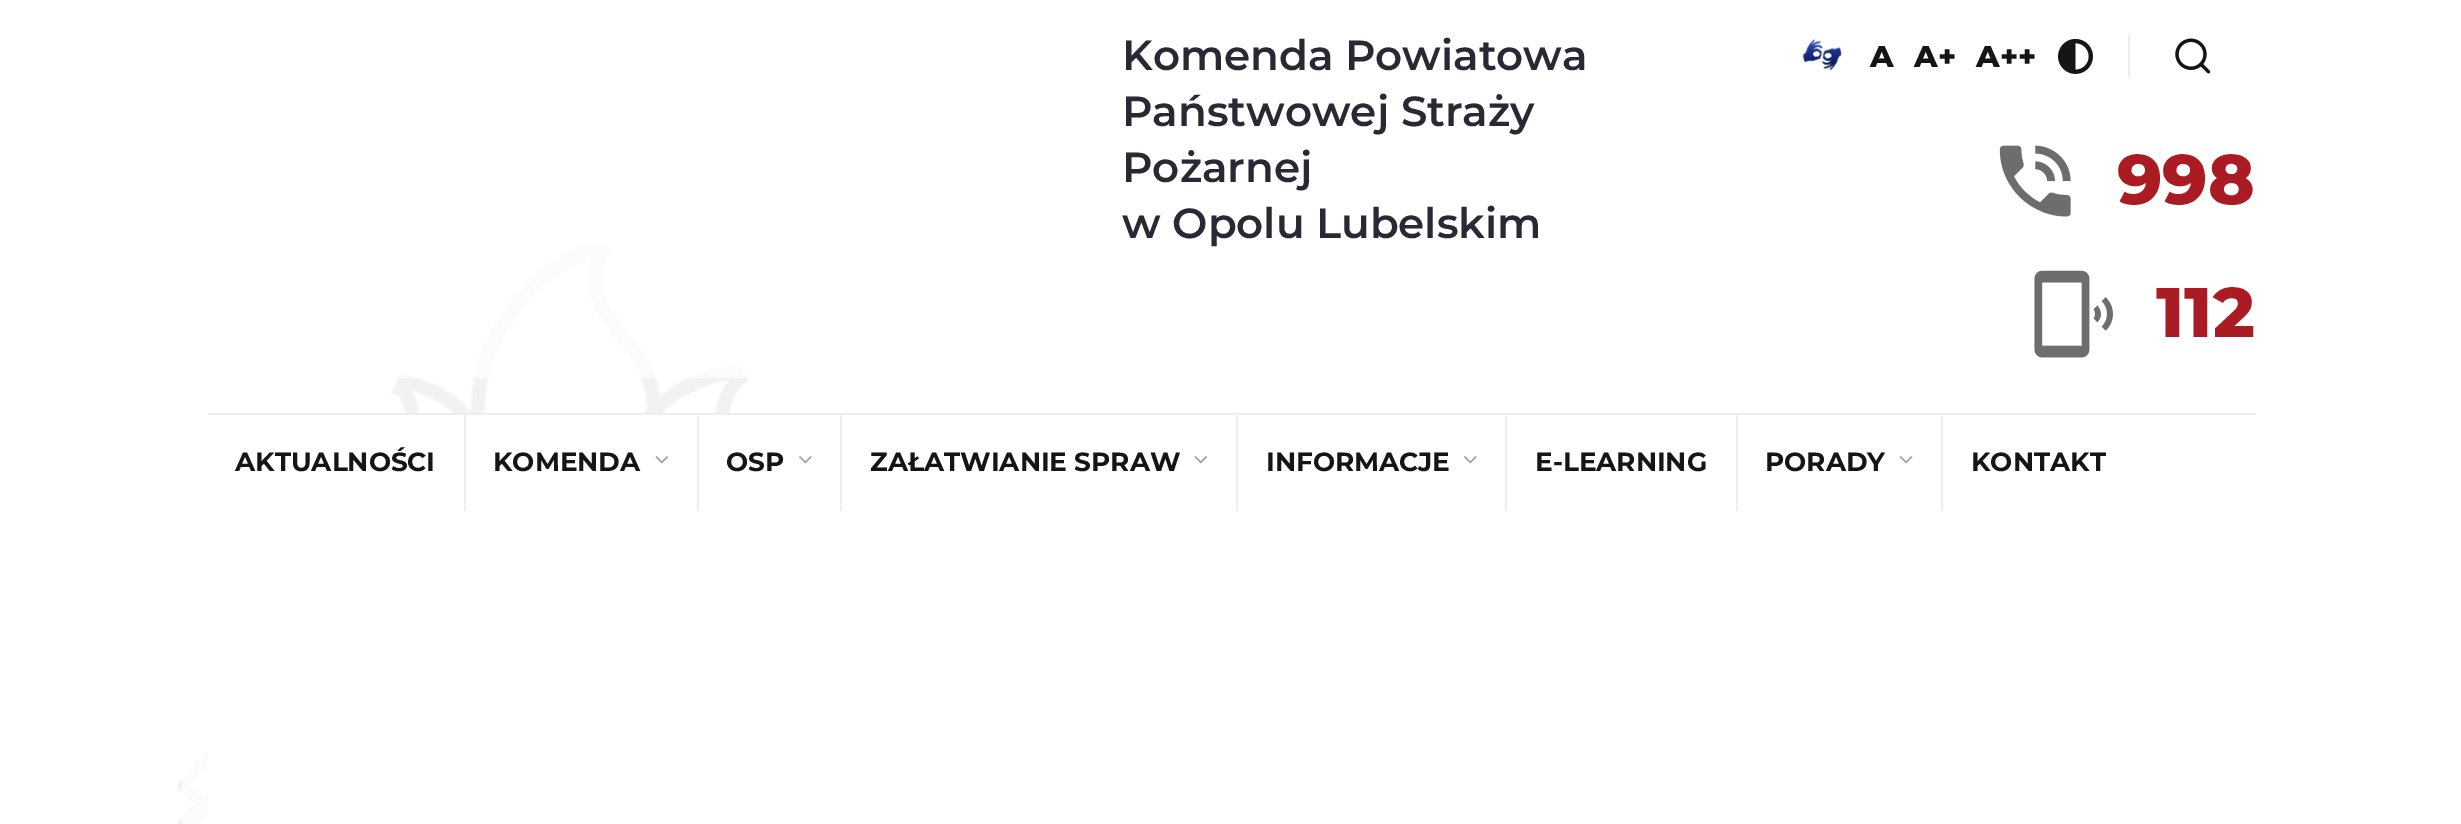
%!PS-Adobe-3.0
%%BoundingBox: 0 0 2461 824
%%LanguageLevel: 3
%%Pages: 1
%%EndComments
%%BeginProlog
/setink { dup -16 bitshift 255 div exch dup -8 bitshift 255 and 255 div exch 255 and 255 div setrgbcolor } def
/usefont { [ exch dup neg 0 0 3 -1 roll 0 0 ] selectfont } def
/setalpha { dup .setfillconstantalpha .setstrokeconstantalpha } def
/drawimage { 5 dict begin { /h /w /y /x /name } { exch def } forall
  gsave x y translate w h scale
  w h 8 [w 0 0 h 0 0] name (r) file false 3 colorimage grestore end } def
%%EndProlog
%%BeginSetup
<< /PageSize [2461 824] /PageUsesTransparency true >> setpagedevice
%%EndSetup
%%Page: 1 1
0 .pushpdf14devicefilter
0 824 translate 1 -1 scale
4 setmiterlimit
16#FFFFFF setink
0 0 2461 824 rectfill
(img1.raw) 177 245 572 579 drawimage
0.7 setalpha
397 245 351 133 rectfill
/Montserrat-SemiBold 42 usefont
1 setalpha
16#292935 setink
[
    [(Komenda Powiatowa) 1122 70]
    [(Państwowej Straży) 1122 126]
    [(Pożarnej) 1122 182]
    [(w Opolu Lubelskim) 1122 238]
] { aload pop moveto show } forall
(img2.raw) 1802 39 40 32 drawimage
/Montserrat-ExtraBold 30 usefont
16#151515 setink
[
    [(A) 1870 67]
    [(A+) 1914 67]
    [(A++) 1976 67]
] { aload pop moveto show } forall
(img3.raw) 2058 38 35 36 drawimage
16#EEEEEE setink
2128 35 2 42 rectfill
(img4.raw) 2175 38 36 36 drawimage
(img5.raw) 1999 145 72 72 drawimage
/Montserrat-ExtraBold 70 usefont
16#AB1B24 setink
2117 204 moveto (998) show
(img6.raw) 2034 270 79 88 drawimage
2156 337 moveto (112) show
0.7 setalpha
[
    [182 413 567 411 16#FFFFFF]
] { aload pop setink rectfill } forall
1 setalpha
[
    [208 415 541 409 16#FFFFFF]
    [208 413 2048 2 16#EEEEEE]
    [464 415 2 96 16#EEEEEE]
] { aload pop setink rectfill } forall
/Montserrat-Bold 26.25 usefont
16#151515 setink
235 471 moveto (AKTUALNOŚCI) show
16#EEEEEE setink
697 415 2 96 rectfill
16#151515 setink
493 471 moveto (KOMENDA) show
(img7.raw) 655 456 13 8 drawimage
16#EEEEEE setink
840 415 2 96 rectfill
16#151515 setink
726 471 moveto (OSP) show
(img8.raw) 799 456 13 8 drawimage
16#EEEEEE setink
1236 415 2 96 rectfill
16#151515 setink
870 471 moveto (ZAŁATWIANIE SPRAW) show
(img7.raw) 1194 456 13 8 drawimage
16#EEEEEE setink
1505 415 2 96 rectfill
16#151515 setink
1266 471 moveto (INFORMACJE) show
(img8.raw) 1464 456 13 8 drawimage
16#EEEEEE setink
1736 415 2 96 rectfill
16#151515 setink
1535 471 moveto (E-LEARNING) show
16#EEEEEE setink
1941 415 2 96 rectfill
16#151515 setink
1765 471 moveto (PORADY) show
(img9.raw) 1899 456 14 8 drawimage
1971 471 moveto (KONTAKT) show
.poppdf14devicefilter showpage
%%EOF
